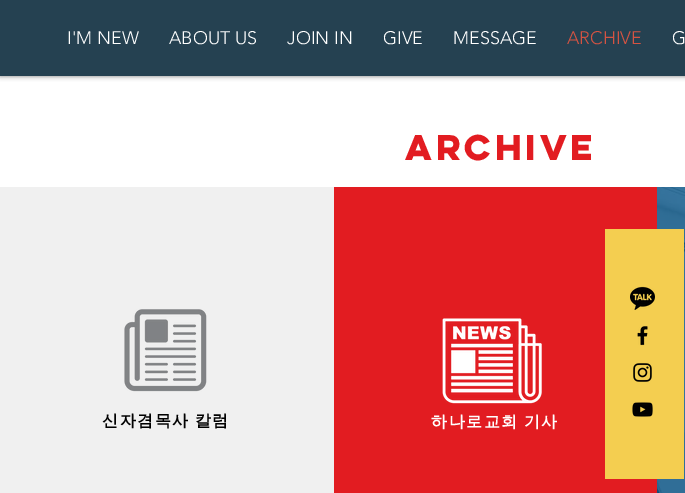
%!PS-Adobe-3.0
%%BoundingBox: 0 0 685 493
%%LanguageLevel: 3
%%Pages: 1
%%EndComments
%%BeginProlog
/setink { dup -16 bitshift 255 div exch dup -8 bitshift 255 and 255 div exch 255 and 255 div setrgbcolor } def
/usefont { [ exch dup neg 0 0 3 -1 roll 0 0 ] selectfont } def
/setalpha { dup .setfillconstantalpha .setstrokeconstantalpha } def
/rrect { 5 dict begin { /r /h /w /y /x } { exch def } forall
  x r add y moveto x w add y 2 copy h add r arct x w add y h add x 1 index r arct
  x y h add x y r arct x y 2 copy exch w add exch r arct closepath end } def
/softshadow { 12 dict begin { /a /b /q /h /w /y /x } { exch def } forall gsave /was 0 def
  9 -2 -9 { dup b mul 4 div /e exch def 1 sub .425 mul 2.718 exch exp 1 add a .99 .min exch div /now exch def
    1 1 now sub 1 was sub div sub setalpha /was now def
    w h .min e 2 mul add 0 gt { x e sub y e sub w e 2 mul add h e 2 mul add
      q e add b .6 mul add w h .min 2 div e add .min 0 .max rrect fill } if } for grestore end } def
/drawimage { 5 dict begin { /h /w /y /x /name } { exch def } forall
  gsave x y translate w h scale
  w h 8 [w 0 0 h 0 0] name (r) file false 3 colorimage grestore end } def
%%EndProlog
%%BeginSetup
<< /PageSize [685 493] /PageUsesTransparency true >> setpagedevice
%%EndSetup
%%Page: 1 1
0 .pushpdf14devicefilter
0 493 translate 1 -1 scale
4 setmiterlimit
16#FFFFFF setink
0 0 685 493 rectfill
16#000000 setink
0 0 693 76 0 2.5 0.5 softshadow
16#254151 setink
0 0 685 76 rectfill
/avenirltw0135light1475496-Light 18 usefont
16#FFFFFF setink
[
    [(I'M NEW) 67 44]
    [(ABOUT US) 169 44]
    [(JOIN IN) 287 44]
    [(GIVE) 383 44]
    [(MESSAGE) 453 44]
] { aload pop moveto show } forall
16#D55342 setink
567 44 moveto (ARCHIVE) show
16#FFFFFF setink
672 44 moveto (G) show
/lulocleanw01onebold-Bold 32 usefont
16#E21C21 setink
405 160 moveto -3.25 0 (ARCHIVE) ashow
16#F0F0F0 setink
0 187 334 306 rectfill
(img1.raw) 124 309 83 83 drawimage
/WenQuanYiZenHei-Bold 16 usefont
16#000000 setink
102 426 moveto -1 0 32 1.5 0 (신자겸목사 칼럼) awidthshow
16#E21C21 setink
334 187 323 306 rectfill
(img2.raw) 442 318 100 86 drawimage
16#FFFFFF setink
431 427 moveto -1 0 32 1.5 0 (하나로교회 기사) awidthshow
16#045184 setink
657 187 28 306 rectfill
(img3.raw) 657 187 28 306 drawimage
16#F4CE50 setink
605 229 79 250 rectfill
(img4.raw) 630 286 25 24 drawimage
(img5.raw) 637 326 11 20 drawimage
(img6.raw) 633 363 19 19 drawimage
(img7.raw) 632 402 21 15 drawimage
.poppdf14devicefilter showpage
%%EOF
